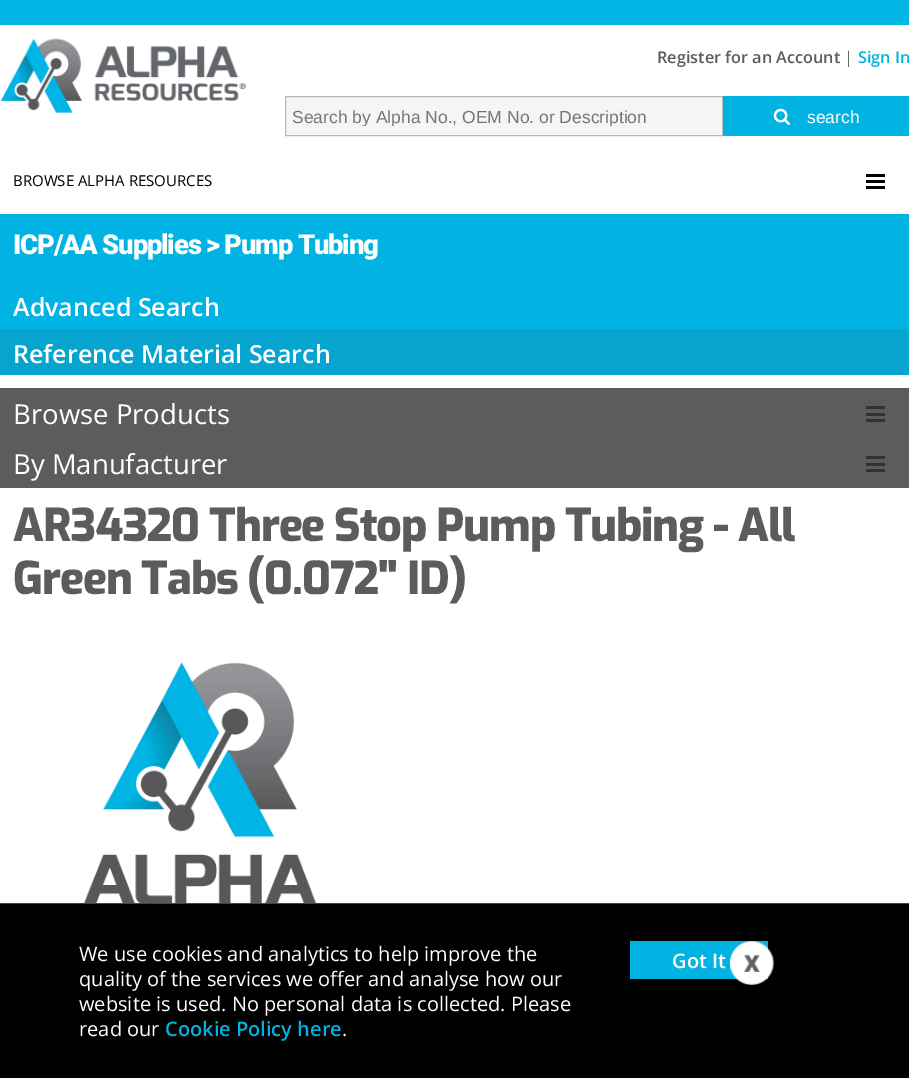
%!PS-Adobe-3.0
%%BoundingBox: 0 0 909 1078
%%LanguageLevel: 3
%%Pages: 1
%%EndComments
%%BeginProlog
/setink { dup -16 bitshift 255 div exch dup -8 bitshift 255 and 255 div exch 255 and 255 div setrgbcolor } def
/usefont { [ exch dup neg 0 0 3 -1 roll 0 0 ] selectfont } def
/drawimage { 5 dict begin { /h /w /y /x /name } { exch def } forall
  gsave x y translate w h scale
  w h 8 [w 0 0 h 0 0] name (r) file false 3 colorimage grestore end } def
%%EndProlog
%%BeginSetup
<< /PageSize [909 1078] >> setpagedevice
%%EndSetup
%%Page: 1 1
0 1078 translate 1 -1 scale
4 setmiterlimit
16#FFFFFF setink
0 0 909 1078 rectfill
16#00B4E5 setink
0 0 909 25 rectfill
(img1.raw) 0 38 247 75 drawimage
/OpenSans-SemiBold 16.25 usefont
16#5C5C5C setink
657 63 moveto (Register for an Account) show
/OpenSans-Regular 16.25 usefont
16#666666 setink
844 63 moveto (|) show
/OpenSans-SemiBold 16.25 usefont
16#00B3E3 setink
858 63 moveto (Sign In) show
16#F5F5F5 setink
285.5 96.5 moveto 722.5 96.5 lineto 722.5 135.5 lineto 285.5 135.5 lineto closepath gsave fill grestore
16#BAB9B9 setink
stroke
gsave
293 106 422 20 rectclip
/LiberationSans-Regular 17.5 usefont
16#757575 setink
292 123 moveto (Search by Alpha No., OEM No. or Description) show
grestore
16#00B3E3 setink
723 96 186 40 rectfill
(img2.raw) 773 108 17 17 drawimage
/LiberationSans-Regular 17.5 usefont
16#FFFFFF setink
807 123 moveto (search) show
/OpenSans-Regular 15 usefont
16#000000 setink
13 186 moveto (BROWSE ALPHA RESOURCES) show
[
    [866 174 19 3 16#000000]
    [866 180 19 3 16#000000]
    [866 186 19 3 16#000000]
    [0 214 909 115 16#00B3E3]
] { aload pop setink rectfill } forall
/Roboto-Black 27.5 usefont
16#FFFFFF setink
13 254 moveto -1.25 0 (ICP/AA Supplies > Pump Tubing) ashow
/OpenSans-SemiBold 25 usefont
13 316 moveto (Advanced Search) show
16#06A4CF setink
0 329 909 46 rectfill
16#FFFFFF setink
13 363 moveto (Reference Material Search) show
16#5C5C5C setink
0 388 909 100 rectfill
/OpenSans-Regular 27.5 usefont
16#FFFFFF setink
13 424 moveto (Browse Products) show
[
    [866 406 19 3 16#323232]
    [866 413 19 3 16#323232]
    [866 419 19 3 16#323232]
] { aload pop setink rectfill } forall
16#FFFFFF setink
13 474 moveto (By Manufacturer) show
[
    [866 456 19 3 16#323232]
    [866 463 19 3 16#323232]
    [866 469 19 3 16#323232]
] { aload pop setink rectfill } forall
/Exo-ExtraBold 45 usefont
16#5C5C5C setink
13 541 moveto -1.25 0 (AR34320 Three Stop Pump Tubing - All) ashow
13 594 moveto -1.25 0 (Green Tabs \(0.072" ID\)) ashow
(img3.raw) 83 662 234 241 drawimage
16#000000 setink
0 904 909 174 rectfill
16#444444 setink
0 903 909 1 rectfill
/OpenSans-Regular 20 usefont
16#FFFFFF setink
[
    [(We use cookies and analytics to help improve the) 79 961]
    [(quality of the services we offer and analyse how our) 79 986]
    [(website is used. No personal data is collected. Please) 79 1011]
    [(read our) 79 1036]
] { aload pop moveto show } forall
/OpenSans-SemiBold 20 usefont
16#00B3E3 setink
165 1036 moveto (Cookie Policy here) show
/OpenSans-Regular 20 usefont
16#FFFFFF setink
342 1036 moveto (.) show
16#00B3E3 setink
630 941 138 38 rectfill
/OpenSans-SemiBold 20 usefont
16#FFFFFF setink
672 968 moveto (Got It) show
(img4.raw) 730 941 44 44 drawimage
showpage
%%EOF
